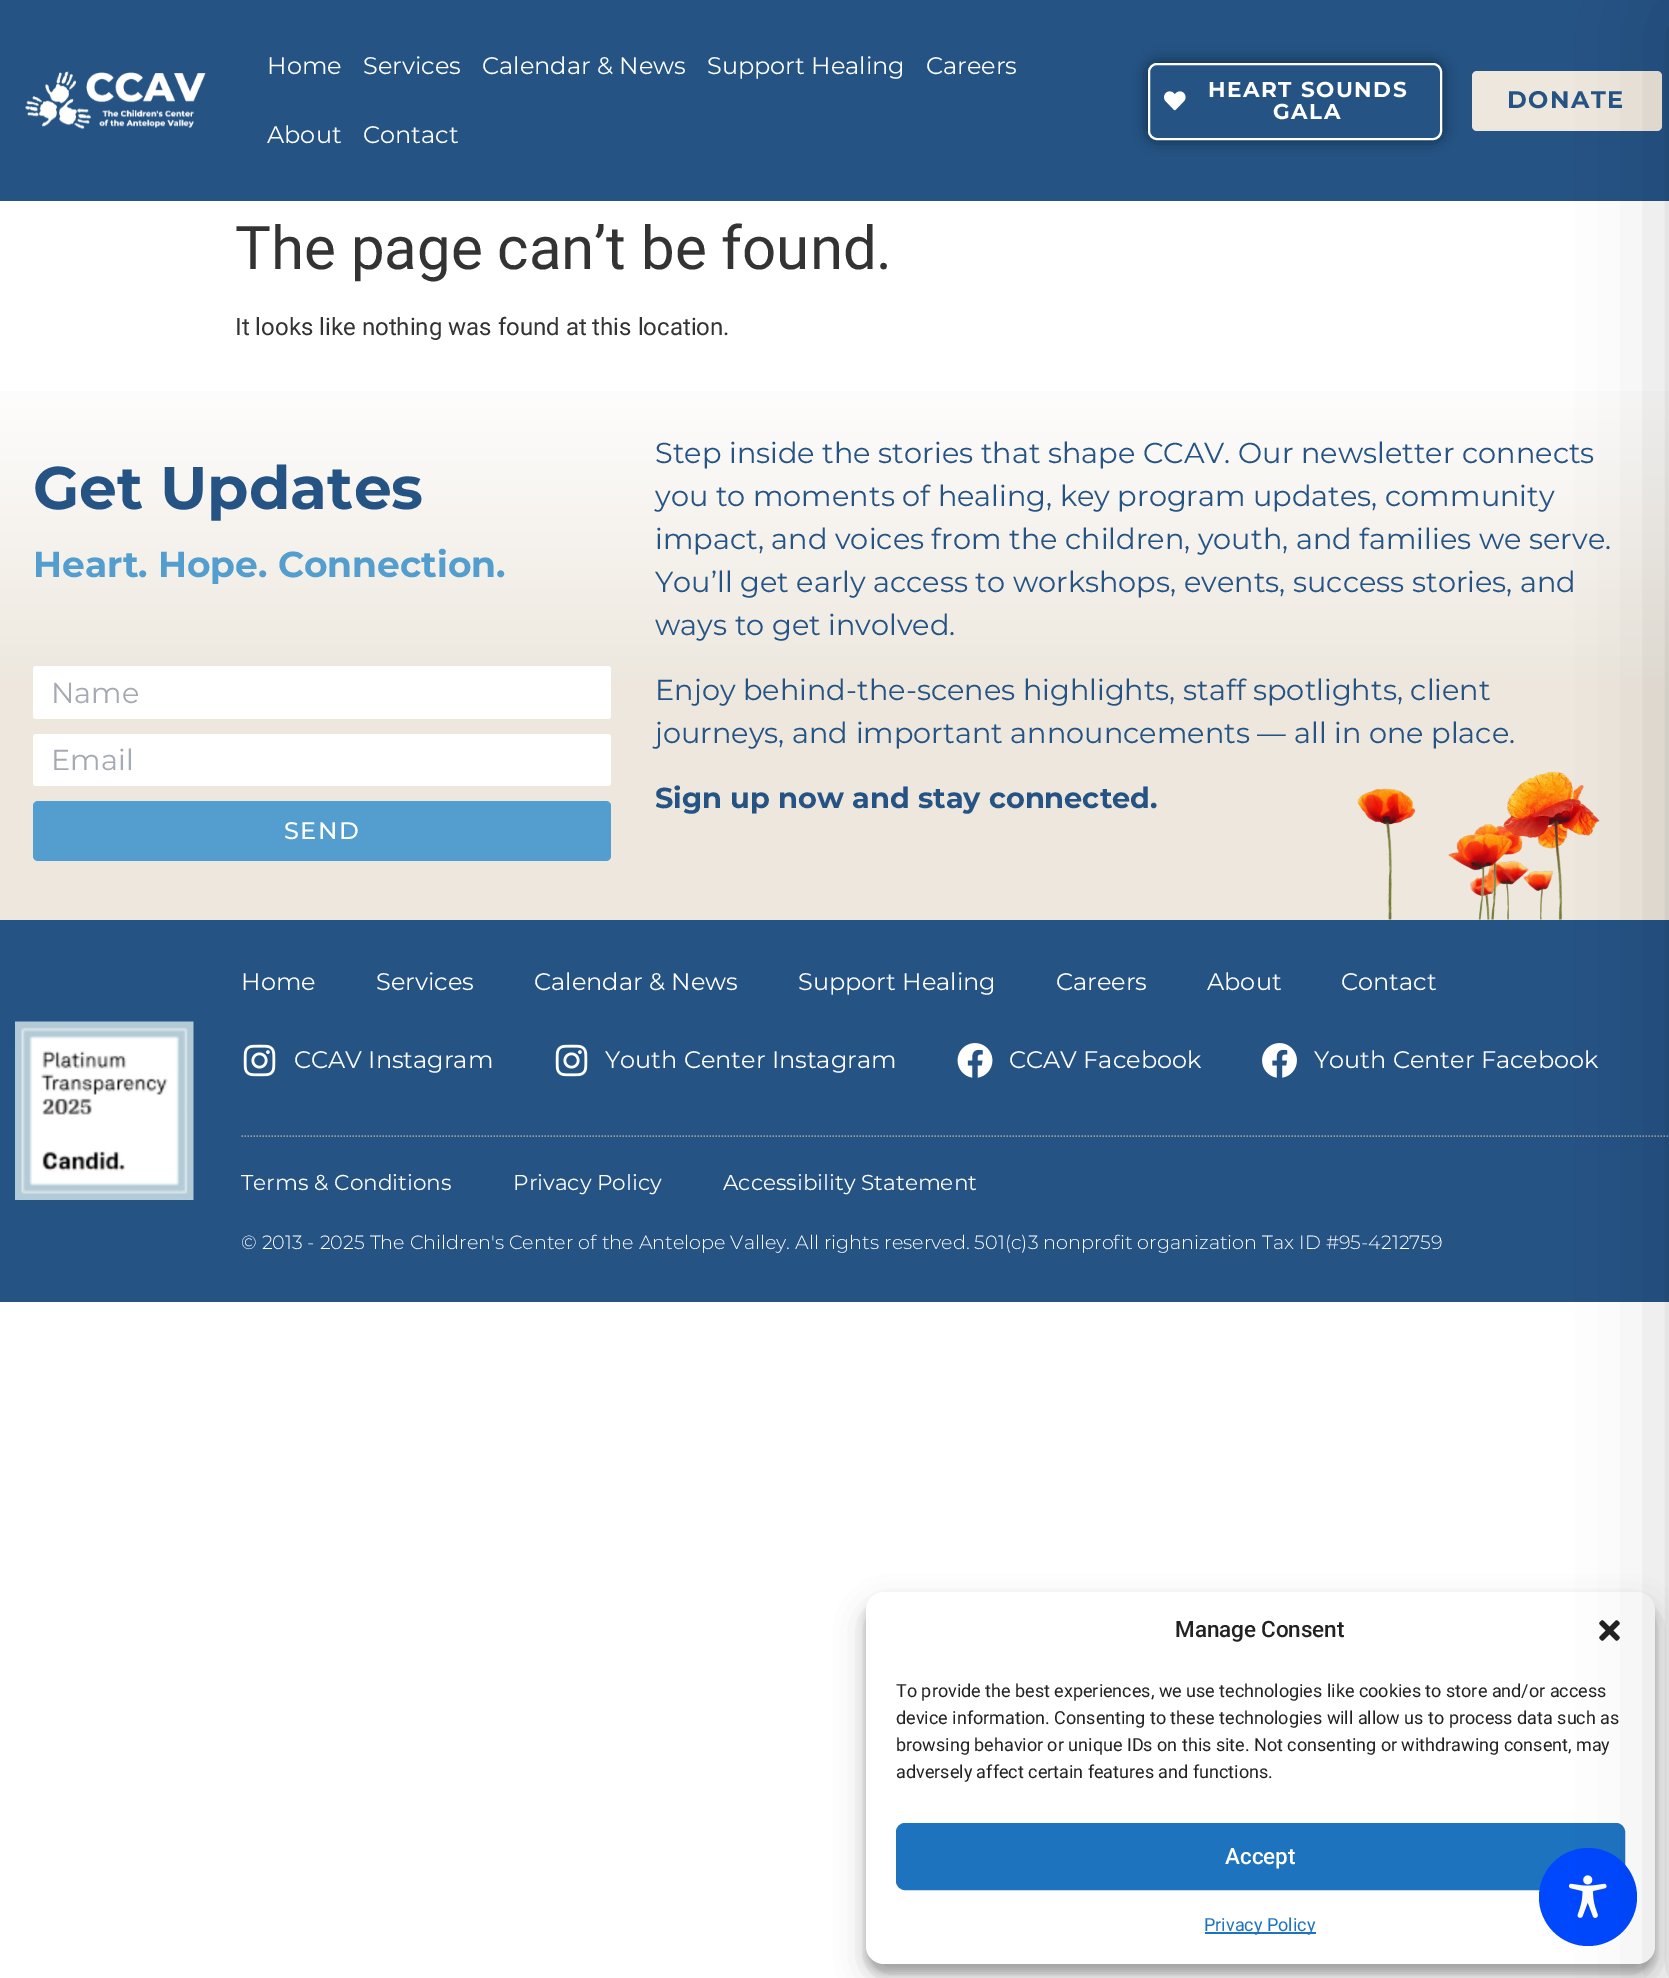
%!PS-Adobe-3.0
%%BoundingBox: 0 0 1669 1978
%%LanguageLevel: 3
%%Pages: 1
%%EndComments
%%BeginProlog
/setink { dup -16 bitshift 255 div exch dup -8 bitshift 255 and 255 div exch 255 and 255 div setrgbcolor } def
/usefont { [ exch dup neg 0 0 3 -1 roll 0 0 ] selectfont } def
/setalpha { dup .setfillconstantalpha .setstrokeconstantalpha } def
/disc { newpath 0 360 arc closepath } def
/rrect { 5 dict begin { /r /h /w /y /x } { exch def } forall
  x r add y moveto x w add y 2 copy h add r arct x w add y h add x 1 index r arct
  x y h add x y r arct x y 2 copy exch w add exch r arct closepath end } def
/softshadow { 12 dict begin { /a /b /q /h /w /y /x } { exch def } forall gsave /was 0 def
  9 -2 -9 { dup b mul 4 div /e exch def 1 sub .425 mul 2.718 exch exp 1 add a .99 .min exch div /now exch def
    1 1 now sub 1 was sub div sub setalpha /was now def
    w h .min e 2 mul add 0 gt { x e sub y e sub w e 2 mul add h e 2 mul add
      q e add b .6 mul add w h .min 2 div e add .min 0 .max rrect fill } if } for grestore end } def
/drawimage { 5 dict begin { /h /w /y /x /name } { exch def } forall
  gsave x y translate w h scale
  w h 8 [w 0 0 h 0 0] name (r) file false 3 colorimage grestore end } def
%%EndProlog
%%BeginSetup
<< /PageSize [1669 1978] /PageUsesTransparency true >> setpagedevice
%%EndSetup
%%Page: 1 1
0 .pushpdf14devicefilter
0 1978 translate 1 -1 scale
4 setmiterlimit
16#FFFFFF setink
0 0 1669 1978 rectfill
16#255384 setink
0 0 1669 201 rectfill
16#EDE7DD setink
1472 71 190 60 5 rrect fill
gsave 0 391 moveto 1669 391 lineto 1669 920 lineto 0 920 lineto closepath clip newpath
<< /ShadingType 2 /ColorSpace /DeviceRGB /Coords [835 367 835 920] /Extend [true true] /Function << /FunctionType 3 /Domain [0 1] /Functions [<< /FunctionType 2 /Domain [0 1] /C0 [1 1 1] /C1 [0.929 0.906 0.867] /N 1 >> << /FunctionType 2 /Domain [0 1] /C0 [0.929 0.906 0.867] /C1 [0.929 0.906 0.867] /N 1 >>] /Bounds [0.59] /Encode [0 1 0 1] >> >> shfill grestore
(img3.raw) 1357 771 243 149 drawimage
16#255384 setink
0 920 1669 382 rectfill
16#9B9B9B setink
1.5 setlinewidth
[1.5 1.5] 0 setdash
241.5 1136 moveto 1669.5 1136 lineto stroke
16#000000 setink
866 1601 789 372 18 4.5 0.23 softshadow
866 1607 789 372 18 15 0.19 softshadow
16#FFFFFF setink
866 1592 789 372 18 rrect fill
(img8.raw) 1599 1620 21 21 drawimage
16#1E73BE setink
897 1824 727 65 8 rrect gsave fill grestore
2 setlinewidth
[] 0 setdash
stroke
16#0048FE setink
1588 1897 49 disc fill
(img9.raw) 1568 1875 39 43 drawimage
16#000000 setink
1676 15 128 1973 0 45 0.2 softshadow
(img1.raw) 25 71 181 59 drawimage
/Montserrat-Regular 24 usefont
16#FFFFFF setink
[
    [(Home) 267 74]
    [(Services) 363 74]
    [(Calendar & News) 482 74]
    [(Support Healing) 707 74]
    [(Careers) 926 74]
    [(About) 267 143]
    [(Contact) 363 143]
] { aload pop moveto show } forall
16#000000 setink
1148 63 294 77 9 7.5 0.5 softshadow
16#255384 setink
1149 64 292 75 8 rrect gsave fill grestore
16#FFFFFF setink
stroke
(img2.raw) 1164 91 22 20 drawimage
/Montserrat-Bold 21.6 usefont
1208 97 moveto 1.5 0 (HEART SOUNDS) ashow
1273 119 moveto 1.5 0 (GALA) ashow
/Montserrat-Bold 24 usefont
16#255384 setink
1507 108 moveto 1.5 0 (DONATE) ashow
/Roboto-Regular 60 usefont
16#333333 setink
235 269 moveto (The page can’t be found.) show
/Roboto-Regular 24 usefont
235 335 moveto (It looks like nothing was found at this location.) show
/Montserrat-Bold 60 usefont
16#255384 setink
33 509 moveto (Get Updates) show
/Montserrat-Bold 36 usefont
16#539ECE setink
33 577 moveto (Heart. Hope. Connection.) show
16#FFFFFF setink
33 666 578 53 3 rrect fill
/Montserrat-Regular 28.8 usefont
16#A4AAB1 setink
51 703 moveto (Name) show
16#FFFFFF setink
33 734 578 52 3 rrect fill
16#A4AAB1 setink
51 770 moveto (Email) show
16#539ECE setink
33 801 578 60 5 rrect fill
/Montserrat-Medium 24 usefont
16#FFFFFF setink
284 839 moveto 1.5 0 (SEND) ashow
/Montserrat-Regular 28.8 usefont
16#255384 setink
[
    [(Step inside the stories that shape CCAV. Our newsletter connects) 655 463]
    [(you to moments of healing, key program updates, community) 655 506]
    [(impact, and voices from the children, youth, and families we serve.) 655 549]
    [(You’ll get early access to workshops, events, success stories, and) 655 592]
    [(ways to get involved.) 655 635]
    [(Enjoy behind-the-scenes highlights, staff spotlights, client) 655 700]
    [(journeys, and important announcements — all in one place.) 655 743]
] { aload pop moveto show } forall
/Montserrat-Bold 28.8 usefont
655 808 moveto (Sign up now and stay connected.) show
(img4.raw) 15 1021 179 179 drawimage
/Montserrat-Regular 24 usefont
16#FFFFFF setink
[
    [(Home) 241 990]
    [(Services) 376 990]
    [(Calendar & News) 534 990]
    [(Support Healing) 798 990]
    [(Careers) 1056 990]
    [(About) 1207 990]
    [(Contact) 1341 990]
] { aload pop moveto show } forall
(img5.raw) 243 1044 33 33 drawimage
294 1068 moveto (CCAV Instagram) show
(img5.raw) 555 1044 33 33 drawimage
605 1068 moveto (Youth Center Instagram) show
(img6.raw) 957 1043 36 35 drawimage
1009 1068 moveto (CCAV Facebook) show
(img7.raw) 1262 1043 35 35 drawimage
1314 1068 moveto (Youth Center Facebook) show
/Montserrat-Regular 21.6 usefont
[
    [(Terms & Conditions) 241 1190]
    [(Privacy Policy) 513 1190]
    [(Accessibility Statement) 723 1190]
] { aload pop moveto show } forall
/Montserrat-Light 19.2 usefont
241 1249 moveto (© 2013 - 2025 The Children's Center of the Antelope Valley. All rights reserved. 501\(c\)3 nonprofit organization Tax ID #95-4212759) show
/Roboto-Medium 22.5 usefont
16#222222 setink
1175 1637 moveto -1 0 32 (Manage Consent) widthshow
/Roboto-Regular 18 usefont
[
    [(To provide the best experiences, we use technologies like cookies to store and/or access) 896 1697]
    [(device information. Consenting to these technologies will allow us to process data such as) 896 1724]
    [(browsing behavior or unique IDs on this site. Not consenting or withdrawing consent, may) 896 1751]
    [(adversely affect certain features and functions.) 896 1778]
] { aload pop moveto show } forall
/Roboto-Medium 22.5 usefont
16#FFFFFF setink
1225 1864 moveto (Accept) show
16#1E73BE setink
1205 1932 111 2 rectfill
/Roboto-Regular 18 usefont
1204 1931 moveto (Privacy Policy) show
.poppdf14devicefilter showpage
%%EOF
